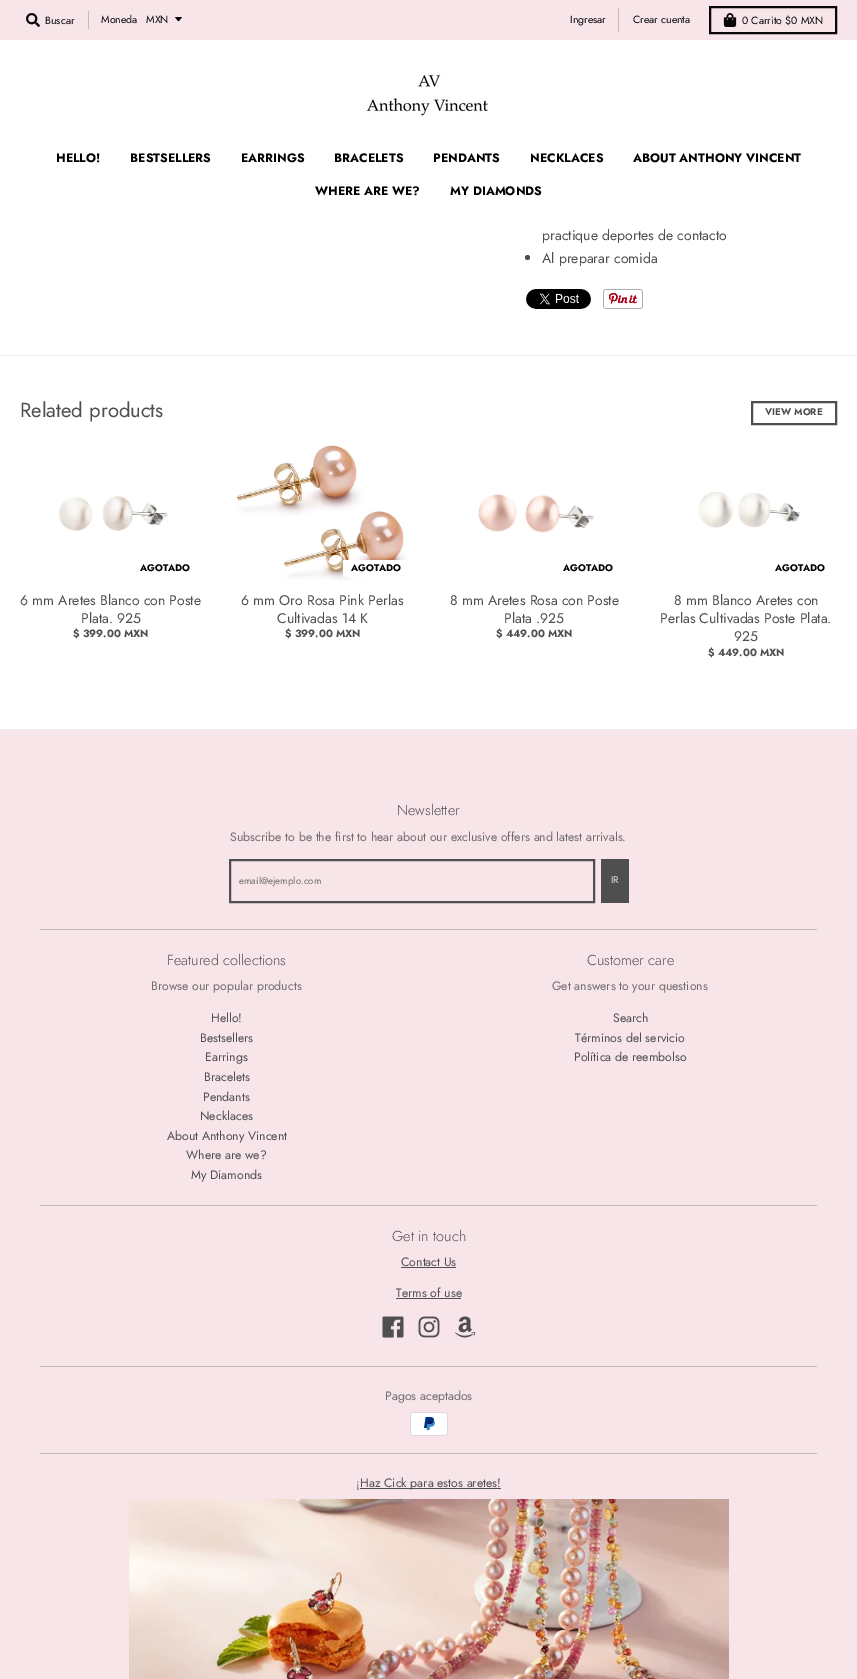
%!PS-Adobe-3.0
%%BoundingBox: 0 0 857 1679
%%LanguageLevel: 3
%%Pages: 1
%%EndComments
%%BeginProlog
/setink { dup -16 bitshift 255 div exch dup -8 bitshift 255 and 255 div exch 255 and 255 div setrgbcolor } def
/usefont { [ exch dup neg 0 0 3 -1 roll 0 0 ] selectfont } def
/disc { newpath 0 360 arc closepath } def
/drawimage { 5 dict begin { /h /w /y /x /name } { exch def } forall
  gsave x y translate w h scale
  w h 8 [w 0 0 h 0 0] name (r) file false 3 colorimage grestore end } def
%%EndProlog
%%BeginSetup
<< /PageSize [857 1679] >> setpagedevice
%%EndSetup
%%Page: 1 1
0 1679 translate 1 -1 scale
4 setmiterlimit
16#FFFFFF setink
0 0 857 1679 rectfill
16#F8E5E9 setink
0 0 857 40 rectfill
(img1.raw) 26 13 14 14 drawimage
/Jost-Regular 10.5 usefont
16#080808 setink
45 24 moveto (Buscar) show
16#C8B8BC setink
88 11 1 18 rectfill
16#080808 setink
101 23 moveto (Moneda) show
175 17 moveto 179.5 22.5 177.5 22.5 182 17 curveto closepath fill
146 23 moveto (MXN) show
16#C8B8BC setink
618 8 1 24 rectfill
16#080808 setink
570 23 moveto (Ingresar) show
633 23 moveto (Crear cuenta) show
2 setlinewidth
710 7 126 26 rectstroke
(img2.raw) 723 13 14 14 drawimage
742 24 moveto (0 Carrito $0 MXN) show
(img3.raw) 363 72 128 44 drawimage
/Jost-Bold 12.25 usefont
16#000000 setink
[
    [(HELLO!) 56 162]
    [(BESTSELLERS) 130 162]
    [(EARRINGS) 241 162]
    [(BRACELETS) 334 162]
    [(PENDANTS) 433 162]
    [(NECKLACES) 530 162]
    [(ABOUT ANTHONY VINCENT) 633 162]
    [(WHERE ARE WE?) 315 195]
    [(MY DIAMONDS) 450 195]
] { aload pop moveto show } forall
16#EDEDED setink
0 355 857 1 rectfill
/Jost-Regular 14 usefont
16#4F4F4F setink
542 240 moveto (practique deportes de contacto) show
527.5 257.5 2.5 disc fill
542 263 moveto (Al preparar comida) show
(img4.raw) 526 289 65 20 drawimage
(img5.raw) 603 289 40 20 drawimage
16#EDEDED setink
0 729 857 1 rectfill
/Jost-Regular 20.25 usefont
16#4F4F4F setink
20 417 moveto (Related products) show
752 402 84 22 rectstroke
/Jost-Bold 9.6 usefont
765 415 moveto (VIEW MORE) show
(img6.raw) 58 496 110 35 drawimage
16#000000 setink
140 571 moveto (AGOTADO) show
/Jost-Regular 14 usefont
16#4F4F4F setink
20 605 moveto (6 mm Aretes Blanco con Poste) show
81 623 moveto (Plata. 925) show
/Jost-Bold 10.5 usefont
73 637 moveto ($ 399.00 MXN) show
(img7.raw) 236 445 172 136 drawimage
16#FFFFFF setink
343 560 65 17 rectfill
/Jost-Bold 9.6 usefont
16#000000 setink
351 571 moveto (AGOTADO) show
/Jost-Regular 14 usefont
16#4F4F4F setink
241 605 moveto (6 mm Oro Rosa Pink Perlas) show
277 623 moveto (Cultivadas 14 K) show
/Jost-Bold 10.5 usefont
285 637 moveto ($ 399.00 MXN) show
(img8.raw) 478 493 116 40 drawimage
/Jost-Bold 9.6 usefont
16#000000 setink
563 571 moveto (AGOTADO) show
/Jost-Regular 14 usefont
16#4F4F4F setink
450 605 moveto (8 mm Aretes Rosa con Poste) show
504 623 moveto (Plata .925) show
/Jost-Bold 10.5 usefont
496 637 moveto ($ 449.00 MXN) show
(img9.raw) 698 491 103 37 drawimage
/Jost-Bold 9.6 usefont
16#000000 setink
775 571 moveto (AGOTADO) show
/Jost-Regular 14 usefont
16#4F4F4F setink
[
    [(8 mm Blanco Aretes con) 674 605]
    [(Perlas Cultivadas Poste Plata.) 660 623]
    [(925) 734 641]
] { aload pop moveto show } forall
/Jost-Bold 10.5 usefont
708 656 moveto ($ 449.00 MXN) show
16#F8E5E9 setink
0 730 857 949 rectfill
/Jost-Light 14.5 usefont
16#4F4F4F setink
397 815 moveto (Newsletter) show
/Jost-Regular 12.25 usefont
16#706D6D setink
230 841 moveto (Subscribe to be the first to hear about our exclusive offers and latest arrivals.) show
16#C5B7BA setink
40 929 777 1 rectfill
16#4F4F4F setink
230 860 364 42 rectstroke
/Jost-Regular 9.6 usefont
16#706D6D setink
239 884 moveto (email@ejemplo.com) show
16#4F4F4F setink
601 859 28 44 rectfill
16#F8E5E9 setink
611 883 moveto (IR) show
/Jost-Light 14.5 usefont
16#4F4F4F setink
167 965 moveto (Featured collections) show
/Jost-Regular 12.25 usefont
16#706D6D setink
151 990 moveto (Browse our popular products) show
16#4F4F4F setink
[
    [(Hello!) 211 1022]
    [(Bestsellers) 200 1042]
    [(Earrings) 205 1061]
    [(Bracelets) 204 1081]
    [(Pendants) 203 1101]
    [(Necklaces) 200 1120]
    [(About Anthony Vincent) 167 1140]
    [(Where are we?) 186 1159]
    [(My Diamonds) 191 1179]
] { aload pop moveto show } forall
/Jost-Light 14.5 usefont
587 965 moveto (Customer care) show
/Jost-Regular 12.25 usefont
16#706D6D setink
552 990 moveto (Get answers to your questions) show
16#4F4F4F setink
[
    [(Search) 613 1022]
    [(Términos del servicio) 575 1042]
    [(Política de reembolso) 574 1061]
] { aload pop moveto show } forall
16#C5B7BA setink
40 1205 777 1 rectfill
/Jost-Light 14.5 usefont
16#4F4F4F setink
392 1241 moveto (Get in touch) show
/Jost-Regular 12.25 usefont
401 1266 moveto (Contact Us) show
401 1267 55 1 rectfill
396 1297 moveto (Terms of use) show
396 1298 65 1 rectfill
(img10.raw) 382 1316 22 22 drawimage
(img11.raw) 418 1316 22 22 drawimage
(img12.raw) 454 1316 22 22 drawimage
16#C5B7BA setink
40 1366 777 1 rectfill
16#706D6D setink
385 1400 moveto (Pagos aceptados) show
(img13.raw) 410 1412 38 24 drawimage
16#C5B7BA setink
40 1453 777 1 rectfill
16#706D6D setink
356 1487 moveto (¡) show
16#4F4F4F setink
360 1488 141 1 rectfill
360 1487 moveto (Haz Cick para estos aretes!) show
(img14.raw) 129 1499 600 180 drawimage
showpage
%%EOF
